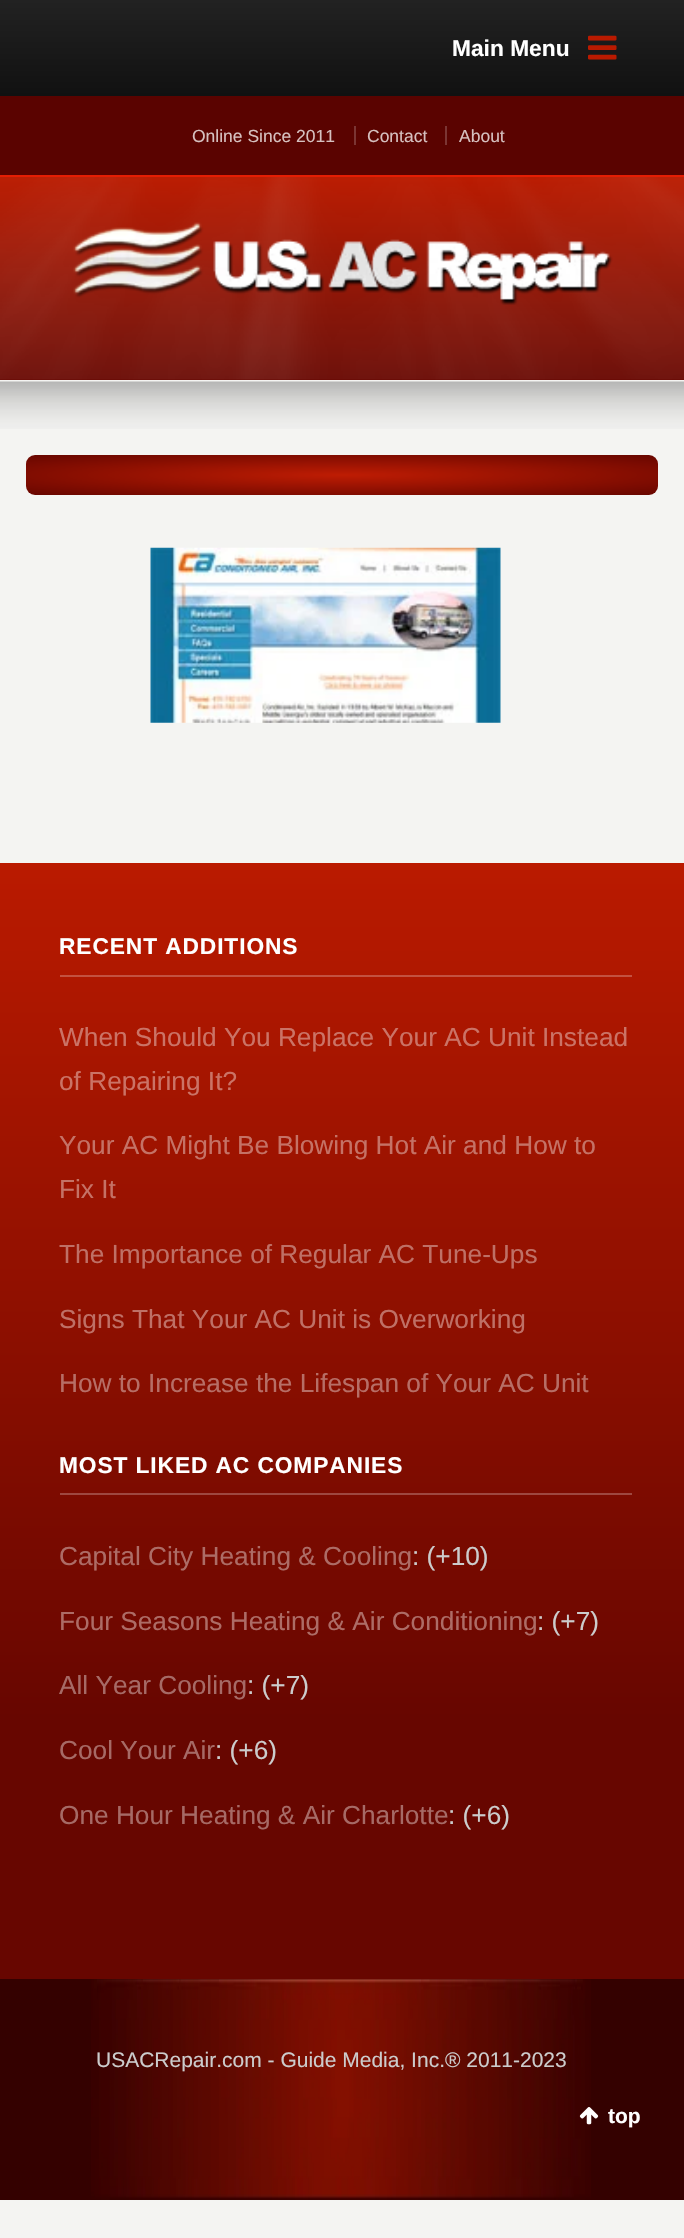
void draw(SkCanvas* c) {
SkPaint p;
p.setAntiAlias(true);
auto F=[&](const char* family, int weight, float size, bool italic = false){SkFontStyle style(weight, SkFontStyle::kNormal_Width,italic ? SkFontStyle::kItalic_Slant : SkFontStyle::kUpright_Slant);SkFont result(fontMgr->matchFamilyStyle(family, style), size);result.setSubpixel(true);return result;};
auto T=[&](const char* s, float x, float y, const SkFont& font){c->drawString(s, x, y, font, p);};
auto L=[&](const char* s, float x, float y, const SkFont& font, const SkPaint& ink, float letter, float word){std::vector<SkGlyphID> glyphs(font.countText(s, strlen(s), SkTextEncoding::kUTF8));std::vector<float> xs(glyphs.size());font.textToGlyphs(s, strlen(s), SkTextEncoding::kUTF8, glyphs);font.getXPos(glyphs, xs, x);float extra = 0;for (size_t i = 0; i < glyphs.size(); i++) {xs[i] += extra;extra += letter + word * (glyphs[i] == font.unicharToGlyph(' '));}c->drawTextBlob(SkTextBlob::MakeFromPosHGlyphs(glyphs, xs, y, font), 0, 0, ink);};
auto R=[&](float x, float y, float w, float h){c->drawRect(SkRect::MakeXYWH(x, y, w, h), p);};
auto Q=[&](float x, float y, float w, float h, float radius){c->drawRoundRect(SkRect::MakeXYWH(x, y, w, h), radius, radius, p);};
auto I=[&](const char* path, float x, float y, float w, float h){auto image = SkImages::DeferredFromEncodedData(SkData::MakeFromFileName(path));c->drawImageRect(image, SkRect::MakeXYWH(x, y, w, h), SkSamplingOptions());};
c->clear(0xfff4f4f2);
{
const SkColor colors[] = {0xff222222,0xff111111};
const float stops[] = {0,1};
const SkPoint ends[] = {{342,0}, {342,96}};
p.setShader(SkGradientShader::MakeLinear(ends, colors, stops, 2, SkTileMode::kClamp));
p.setAlpha(255);
}
R(0,0,684,96);
auto f1 = F("Liberation Sans",700,22.75);
p.setShader(nullptr);
p.setColor(0xffffffff);
T("Main Menu",452,56,f1);
I("1.png",588,35,29,25);
p.setColor(0xff5a0300);
R(0,96,684,79);
auto f2 = F("Liberation Sans",400,17.5);
p.setColor(0xffd6c0bf);
T("Online Since 2011",192,142,f2);
p.setColor(0xff7b3533);
R(354,126,2,19);
p.setColor(0xffd6c0bf);
T("Contact",367,142,f2);
p.setColor(0xff7b3533);
R(445,126,2,19);
p.setColor(0xffd6c0bf);
T("About",459,142,f2);
{
const SkColor colors[] = {0xffba1a00,0xff670600};
const float stops[] = {0,1};
const SkPoint ends[] = {{342,177}, {342,380}};
p.setShader(SkGradientShader::MakeLinear(ends, colors, stops, 2, SkTileMode::kClamp));
p.setAlpha(255);
}
R(0,177,684,203);
p.setShader(nullptr);
p.setColor(0xffe41e04);
R(0,175,684,2);
I("2.png",0,177,684,203);
I("3.png",73,222,540,83);
I("4.png",0,381,684,48);
{
const SkColor colors[] = {0xffbe1c03,0xff670600};
const float stops[] = {0,1};
SkMatrix m = SkMatrix::Translate(342,475).preScale(447,28);
p.setShader(SkGradientShader::MakeRadial({0, 0}, 1, colors, stops, 2, SkTileMode::kClamp, 0, &m));
p.setAlpha(255);
}
Q(26,455,632,40,9);
I("5.png",150,547,351,176);
{
const SkColor colors[] = {0xffba1a00,0xff670600};
const float stops[] = {0,.64};
const SkPoint ends[] = {{342,863}, {342,2200}};
p.setShader(SkGradientShader::MakeLinear(ends, colors, stops, 2, SkTileMode::kClamp));
p.setAlpha(255);
}
R(0,863,684,1116);
p.setShader(nullptr);
p.setColor(0xffc35140);
R(60,975,572,2);
p.setColor(0xffffffff);
L("RECENT ADDITIONS",59,954,f1,p,.9,0);
auto f3 = F("Liberation Sans",400,26.25);
p.setColor(0xffcb7366);
T("When Should You Replace Your AC Unit Instead",59,1046,f3);
T("of Repairing It?",59,1090,f3);
p.setColor(0xffc57266);
T("Your AC Might Be Blowing Hot Air and How to",59,1154,f3);
T("Fix It",59,1198,f3);
p.setColor(0xffbf7066);
T("The Importance of Regular AC Tune-Ups",59,1263,f3);
T("Signs That Your AC Unit is Overworking",59,1328,f3);
p.setColor(0xffb76e66);
T("How to Increase the Lifespan of Your AC Unit",59,1392,f3);
p.setColor(0xff9e4840);
R(60,1493,572,2);
p.setColor(0xffffffff);
L("MOST LIKED AC COMPANIES",59,1473,f1,p,.9,0);
p.setColor(0xffad6c66);
T("Capital City Heating & Cooling",59,1565,f3);
p.setColor(0xffcccccc);
T(": (+10)",412,1565,f3);
p.setColor(0xffad6c66);
T("Four Seasons Heating & Air Conditioning",59,1630,f3);
p.setColor(0xffcccccc);
T(": (+7)",537,1630,f3);
p.setColor(0xffa66a66);
T("All Year Cooling",59,1694,f3);
p.setColor(0xffcccccc);
T(": (+7)",247,1694,f3);
p.setColor(0xffa66a66);
T("Cool Your Air",59,1759,f3);
p.setColor(0xffcccccc);
T(": (+6)",215,1759,f3);
p.setColor(0xffa66a66);
T("One Hour Heating & Air Charlotte",59,1824,f3);
p.setColor(0xffcccccc);
T(": (+6)",448,1824,f3);
p.setColor(0xff340100);
R(0,1979,684,221);
I("6.png",91,1979,500,221);
auto f4 = F("Liberation Sans",400,21);
p.setColor(0xffcccccc);
T("USACRepair.com - Guide Media, Inc.® 2011-2023",96,2067,f4);
I("7.png",579,2107,20,18);
auto f5 = F("Liberation Sans",700,21);
p.setColor(0xffffffff);
T("top",608,2123,f5);
}
